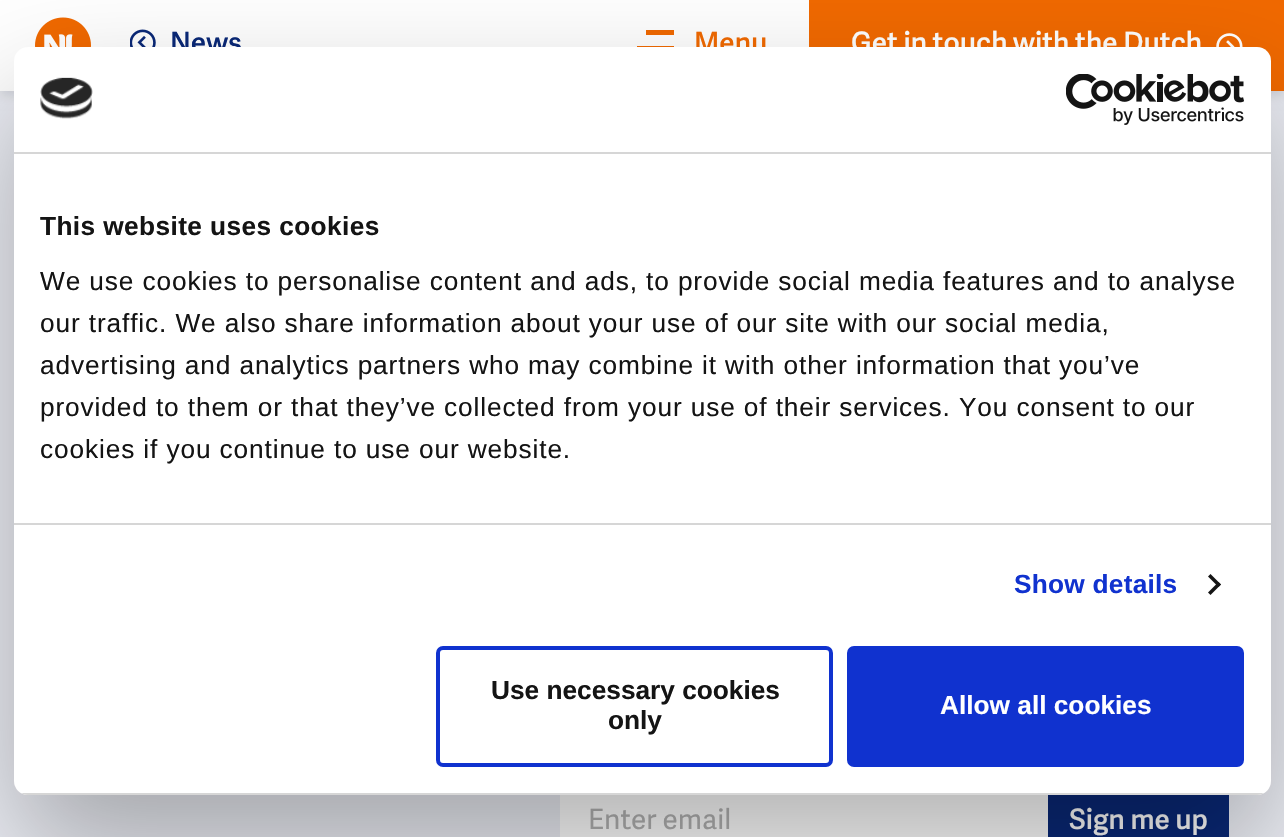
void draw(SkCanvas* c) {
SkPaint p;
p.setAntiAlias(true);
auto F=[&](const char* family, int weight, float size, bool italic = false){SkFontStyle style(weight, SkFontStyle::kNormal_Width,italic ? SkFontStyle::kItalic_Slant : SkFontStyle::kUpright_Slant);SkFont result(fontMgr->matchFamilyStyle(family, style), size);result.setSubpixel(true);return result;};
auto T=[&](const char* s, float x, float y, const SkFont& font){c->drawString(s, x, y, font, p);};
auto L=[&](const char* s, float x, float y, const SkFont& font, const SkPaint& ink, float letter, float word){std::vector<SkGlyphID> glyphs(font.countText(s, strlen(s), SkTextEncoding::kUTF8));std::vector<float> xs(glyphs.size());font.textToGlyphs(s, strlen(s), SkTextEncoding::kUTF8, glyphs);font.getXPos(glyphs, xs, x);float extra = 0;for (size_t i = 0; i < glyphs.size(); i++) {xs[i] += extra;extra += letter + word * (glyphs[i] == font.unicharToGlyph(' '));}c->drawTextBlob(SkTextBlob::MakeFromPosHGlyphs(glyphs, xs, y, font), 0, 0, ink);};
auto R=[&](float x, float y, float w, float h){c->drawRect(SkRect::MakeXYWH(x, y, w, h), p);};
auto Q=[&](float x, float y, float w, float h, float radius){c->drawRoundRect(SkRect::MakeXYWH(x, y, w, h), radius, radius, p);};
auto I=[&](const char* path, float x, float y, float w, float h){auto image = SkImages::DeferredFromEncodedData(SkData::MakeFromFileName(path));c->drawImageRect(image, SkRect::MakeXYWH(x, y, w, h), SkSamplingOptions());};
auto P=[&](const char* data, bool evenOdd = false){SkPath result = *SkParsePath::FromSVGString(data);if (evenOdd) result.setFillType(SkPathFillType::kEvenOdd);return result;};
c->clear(0xffeceef5);
p.setColor(0x1a000000);
p.setMaskFilter(SkMaskFilter::MakeBlur(kNormal_SkBlurStyle, 5));
c->drawRect(SkRect::MakeXYWH(0,5,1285,91),p);
p.setMaskFilter(nullptr);
p.setColor(0xffffffff);
R(0,0,809,91);
I("1.png",35,17,56,30);
I("2.png",130,29,26,18);
auto f1 = F("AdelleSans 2",400,28);
p.setColor(0xff092877);
T("News",170,52,f1);
p.setColor(0xfff16900);
R(646,30,28,5);
R(637,46,37,1);
T("Menu",694,52,f1);
R(809,0,475,91);
p.setColor(0xffffffff);
T("Get in touch with the Dutch",851,52,f1);
I("3.png",1216,33,27,14);
R(560,795,488,42);
auto f2 = F("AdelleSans",400,28);
p.setColor(0xffb3b3b3);
T("Enter email",588,829,f2);
p.setColor(0xff092877);
R(1048,795,181,42);
p.setColor(0xffffffff);
T("Sign me up",1069,829,f1);
p.setColor(0x4d000000);
p.setMaskFilter(SkMaskFilter::MakeBlur(kNormal_SkBlurStyle, 59.5));
c->drawRoundRect(SkRect::MakeXYWH(14,103,1257,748),14,14,p);
p.setMaskFilter(nullptr);
p.setColor(0xffffffff);
Q(14,47,1257,748,14);
p.setColor(0xffd6d6d6);
R(14,152,1257,2);
I("4.png",40,77,53,42);
I("5.png",1066,74,178,51);
R(14,523,1257,2);
auto f3 = F("Liberation Sans",700,26.25);
p.setColor(0xff141414);
L("This website uses cookies",40,235,f3,p,.4,0);
auto f4 = F("Liberation Sans",400,26.25);
L("We use cookies to personalise content and ads, to provide social media features and to analyse",40,290,f4,p,.88,0);
L("our traffic. We also share information about your use of our site with our social media,",40,332,f4,p,.88,0);
L("advertising and analytics partners who may combine it with other information that you’ve",40,374,f4,p,.88,0);
L("provided to them or that they’ve collected from your use of their services. You consent to our",40,416,f4,p,.88,0);
L("cookies if you continue to use our website.",40,458,f4,p,.88,0);
p.setColor(0xff1032cf);
L("Show details",1014,593,f3,p,.25,0);
p.setColor(0xff141414);
c->drawPath(P("M1210.5 574l10.5 10.5l-2.5 2.5l-10.5-10.5z"),p);
c->drawPath(P("M1218.5 582l2.5 2.5l-10.5 10.5l-2.5-2.5z"),p);
c->save();
c->clipPath(P("M28 47h1229c7.5 0 14 6.5 14 14v720c0 7.5-6.5 14-14 14h-1229c-7.5 0-14-6.5-14-14v-720c0-7.5 6.5-14 14-14z"),true);
p.setColor(0xffd6d6d6);
R(14,793,1257,2);
c->restore();
p.setStroke(true);
p.setStrokeWidth(4);
p.setColor(0xff1032cf);
c->drawRoundRect(SkRect::MakeXYWH(438,648,393,117),5,5,p);
p.setStroke(false);
p.setColor(0xff141414);
T("Use necessary cookies",491,699,f3);
T("only",608,729,f3);
p.setColor(0xff1032cf);
c->drawRoundRect(SkRect::MakeXYWH(849,648,393,117),5,5,p);
p.setStroke(true);
c->drawRoundRect(SkRect::MakeXYWH(849,648,393,117),5,5,p);
p.setStroke(false);
p.setColor(0xffffffff);
T("Allow all cookies",940,714,f3);
}
